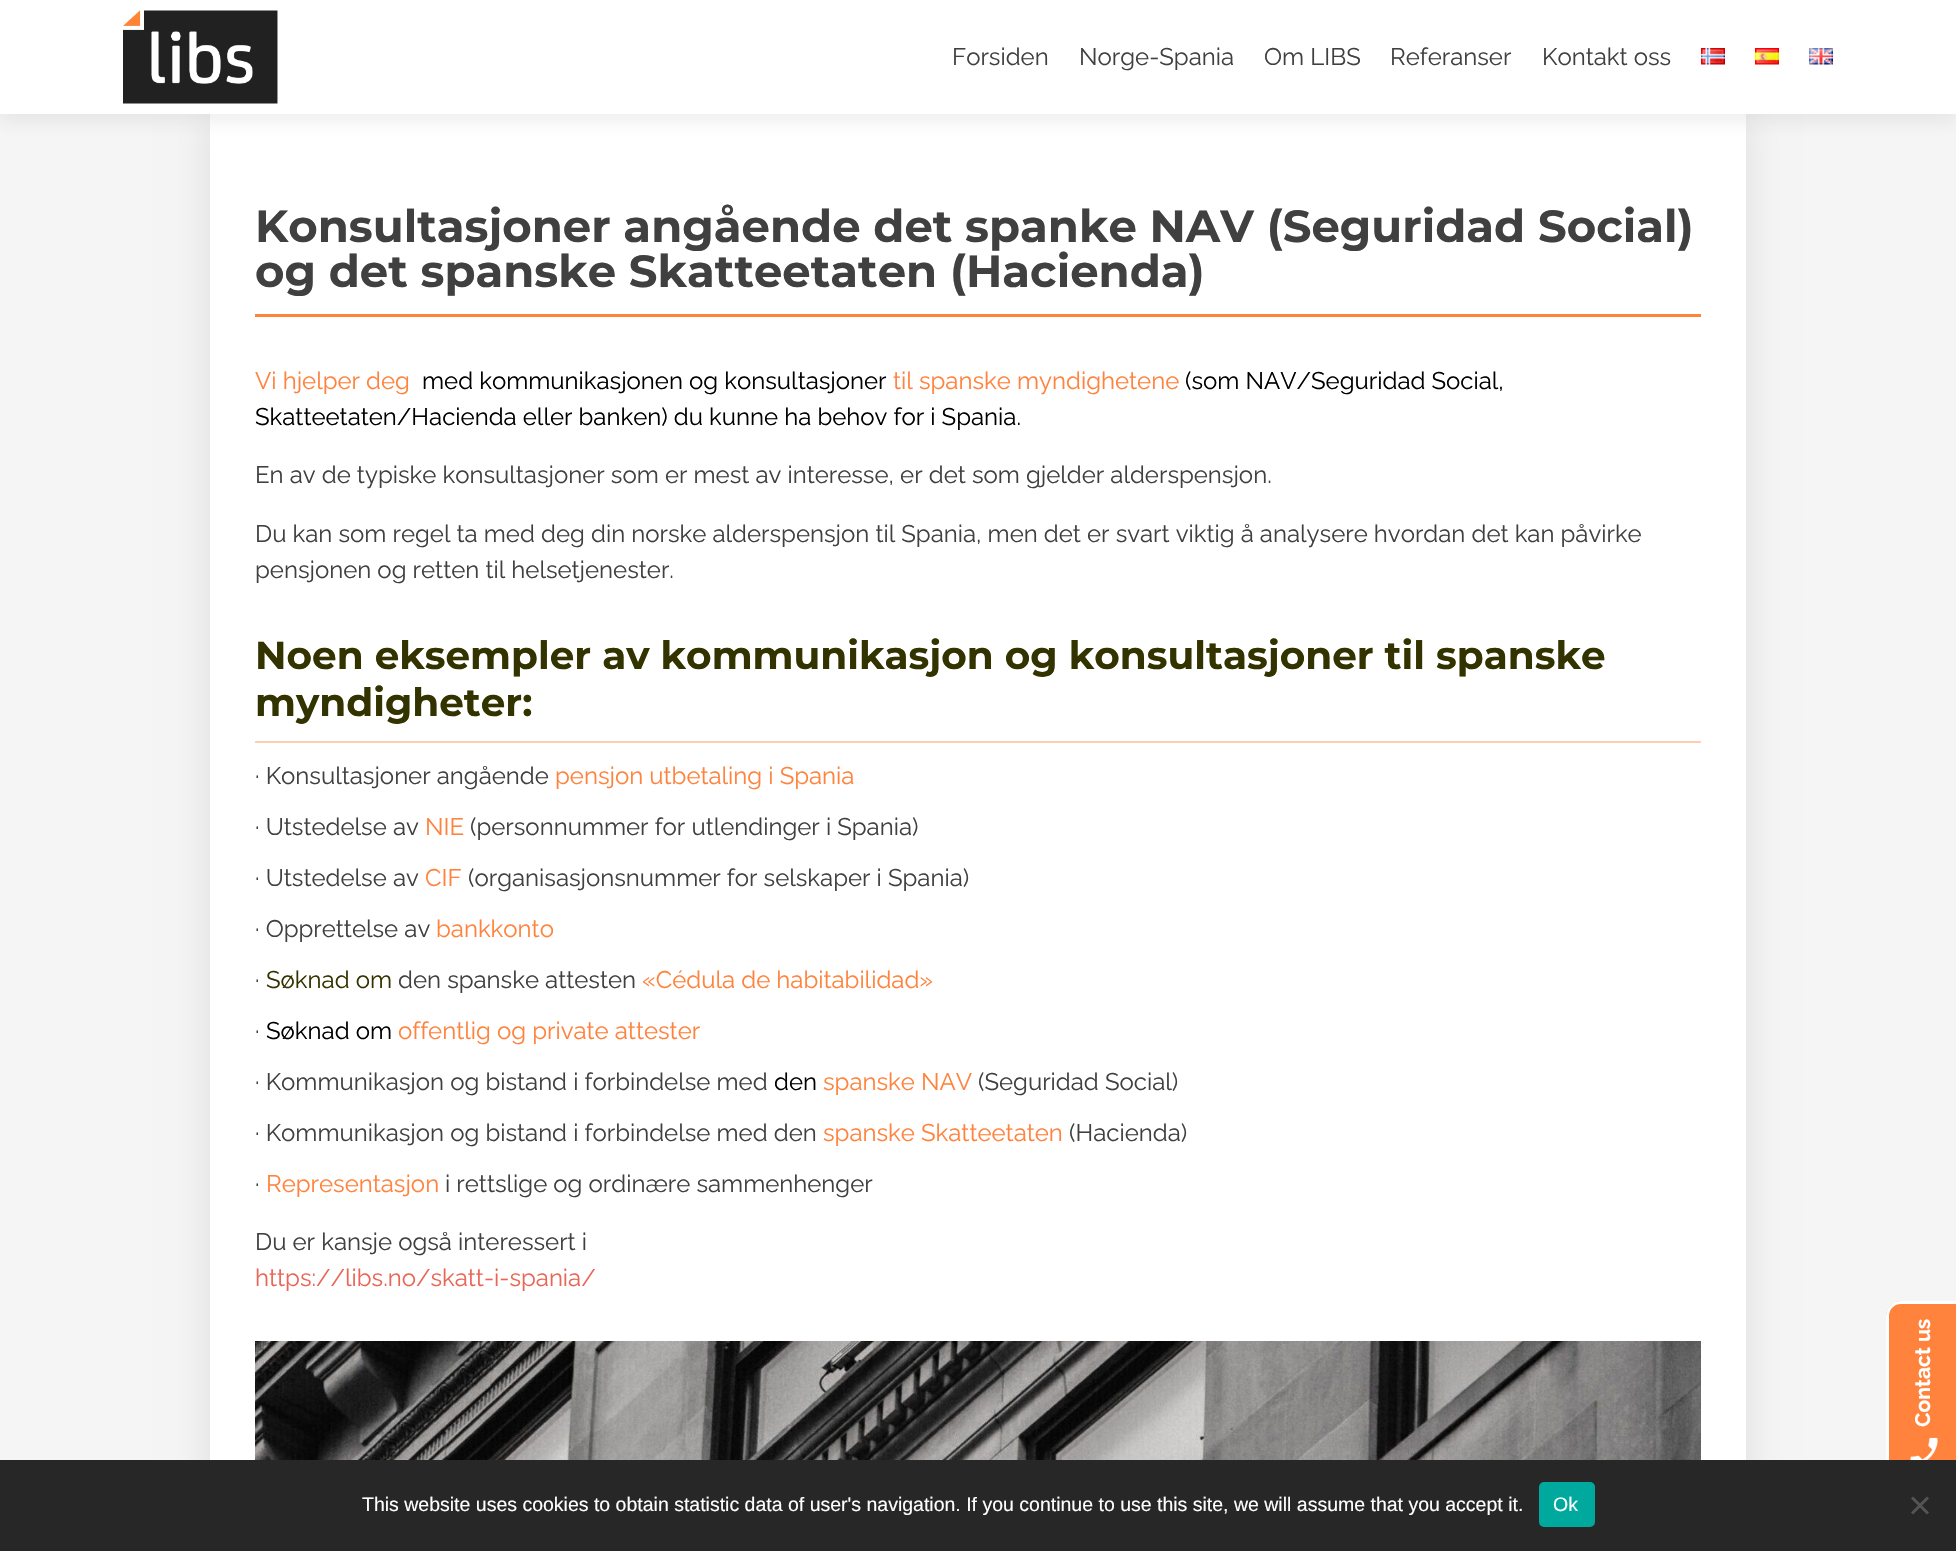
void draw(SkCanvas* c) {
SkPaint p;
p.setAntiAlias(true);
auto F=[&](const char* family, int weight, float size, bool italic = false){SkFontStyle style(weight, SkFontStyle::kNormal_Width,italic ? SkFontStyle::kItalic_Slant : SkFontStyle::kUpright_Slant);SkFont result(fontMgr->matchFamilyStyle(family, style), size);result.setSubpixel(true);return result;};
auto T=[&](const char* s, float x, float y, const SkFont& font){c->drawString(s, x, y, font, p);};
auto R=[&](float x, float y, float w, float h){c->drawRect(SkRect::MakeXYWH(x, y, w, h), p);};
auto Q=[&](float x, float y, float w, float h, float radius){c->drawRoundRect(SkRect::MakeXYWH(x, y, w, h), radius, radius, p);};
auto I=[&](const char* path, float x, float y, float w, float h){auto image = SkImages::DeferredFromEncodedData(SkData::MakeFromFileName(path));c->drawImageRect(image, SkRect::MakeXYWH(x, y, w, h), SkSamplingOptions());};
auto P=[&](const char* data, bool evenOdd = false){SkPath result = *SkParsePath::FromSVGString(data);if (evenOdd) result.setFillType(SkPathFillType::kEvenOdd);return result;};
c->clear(0xfff5f5f5);
p.setColor(0xffdddddd);
p.setMaskFilter(SkMaskFilter::MakeBlur(kNormal_SkBlurStyle, 19));
c->drawRect(SkRect::MakeXYWH(210,114,1536,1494),p);
p.setMaskFilter(nullptr);
p.setColor(0xffffffff);
R(210,114,1536,1346);
p.setColor(0x14323232);
p.setMaskFilter(SkMaskFilter::MakeBlur(kNormal_SkBlurStyle, 8));
c->drawRect(SkRect::MakeXYWH(0,8,1956,114),p);
p.setMaskFilter(nullptr);
p.setColor(0xffffffff);
R(0,0,1956,114);
I("1.png",123,10,155,94);
auto f1 = F("Raleway",400,24);
p.setColor(0xff404040);
T("Forsiden",952,65,f1);
T("Norge-Spania",1079,65,f1);
T("Om LIBS",1264,65,f1);
T("Referanser",1390,65,f1);
T("Kontakt oss",1542,65,f1);
I("2.png",1701,48,24,17);
I("3.png",1755,48,24,17);
I("4.png",1809,48,24,17);
auto f2 = F("Montserrat",700,45);
T("Konsultasjoner angående det spanke NAV (Seguridad Social)",255,242,f2);
T("og det spanske Skatteetaten (Hacienda)",255,287,f2);
p.setColor(0xffff833d);
R(255,314,1446,3);
T("Vi hjelper deg",255,389,f1);
p.setColor(0xff000000);
T("med kommunikasjonen og konsultasjoner",422,389,f1);
p.setColor(0xffff833d);
T("til spanske myndighetene",893,389,f1);
p.setColor(0xff000000);
T("(som NAV/Seguridad Social,",1185,389,f1);
T("Skatteetaten/Hacienda eller banken) du kunne ha behov for i Spania.",255,425,f1);
p.setColor(0xff404040);
T("En av de typiske konsultasjoner som er mest av interesse, er det som gjelder alderspensjon.",255,483,f1);
T("Du kan som regel ta med deg din norske alderspensjon til Spania, men det er svart viktig å analysere hvordan det kan påvirke",255,542,f1);
T("pensjonen og retten til helsetjenester.",255,578,f1);
auto f3 = F("Montserrat",700,39);
p.setColor(0xff333300);
T("Noen eksempler av kommunikasjon og konsultasjoner til spanske",255,669,f3);
T("myndigheter:",255,716,f3);
p.setColor(0xffffcdb1);
R(255,741,1446,2);
p.setColor(0xff404040);
T("· Konsultasjoner angående",255,784,f1);
p.setColor(0xffff833d);
T("pensjon utbetaling i Spania",555,784,f1);
p.setColor(0xff404040);
T("· Utstedelse av",255,835,f1);
p.setColor(0xffff833d);
T("NIE",425,835,f1);
p.setColor(0xff404040);
T("(personnummer for utlendinger i Spania)",470,835,f1);
T("· Utstedelse av",255,886,f1);
p.setColor(0xffff833d);
T("CIF",425,886,f1);
p.setColor(0xff404040);
T("(organisasjonsnummer for selskaper i Spania)",468,886,f1);
T("· Opprettelse av",255,937,f1);
p.setColor(0xffff833d);
T("bankkonto",436,937,f1);
p.setColor(0xff404040);
T("·",255,988,f1);
p.setColor(0xff333300);
T("Søknad om",266,988,f1);
p.setColor(0xff404040);
T("den spanske attesten",398,988,f1);
p.setColor(0xffff833d);
T("«Cédula de habitabilidad»",642,988,f1);
p.setColor(0xff404040);
T("·",255,1039,f1);
p.setColor(0xff000000);
T("Søknad om",266,1039,f1);
p.setColor(0xffff833d);
T("offentlig og private attester",398,1039,f1);
p.setColor(0xff404040);
T("· Kommunikasjon og bistand i forbindelse med",255,1090,f1);
p.setColor(0xff000000);
T("den",774,1090,f1);
p.setColor(0xffff833d);
T("spanske NAV",823,1090,f1);
p.setColor(0xff404040);
T("(Seguridad Social)",978,1090,f1);
T("· Kommunikasjon og bistand i forbindelse med den",255,1141,f1);
p.setColor(0xffff833d);
T("spanske Skatteetaten",823,1141,f1);
p.setColor(0xff404040);
T("(Hacienda)",1069,1141,f1);
T("·",255,1192,f1);
p.setColor(0xffff833d);
T("Representasjon",266,1192,f1);
p.setColor(0xff404040);
T("i rettslige og ordinære sammenhenger",445,1192,f1);
T("Du er kansje også interessert i",255,1250,f1);
p.setColor(0xffe96656);
T("https://libs.no/skatt-i-spania/",255,1286,f1);
I("5.png",255,1341,1446,119);
p.setColor(0xffff833d);
c->drawPath(P("M1886 1473v-157c0-8 7-15 15-15h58v187h-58c-8 0-15-7-15-15z"),p);
p.setStroke(true);
p.setStrokeWidth(3);
p.setColor(0xffffffff);
c->drawPath(P("M1887.5 1472.5v-156.5c0-7.5 6-13.5 13.5-13.5h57v183.5h-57c-7.5 0-13.5-6-13.5-13.5z"),p);
auto f4 = F("Raleway",700,21);
p.setStroke(false);
c->save();
c->rotate(-90,1930,1427);
T("Contact us",1930,1427,f4);
c->restore();
I("6.png",1910,1437,28,23);
p.setColor(0xff272727);
R(0,1460,1956,91);
auto f5 = F("Liberation Sans",400,19.5);
p.setColor(0xffffffff);
T("This website uses cookies to obtain statistic data of user's navigation. If you continue to use this site, we will assume that you accept it.",362,1511,f5);
p.setColor(0xff00a99d);
Q(1539,1482,56,45,5);
p.setColor(0xffffffff);
T("Ok",1553,1511,f5);
p.setColor(0xff545454);
c->drawPath(P("M1927 1496.5l2 2l-16 16l-2-2z"),p);
c->drawPath(P("M1911 1498.5l2-2l16 16l-2 2z"),p);
}
